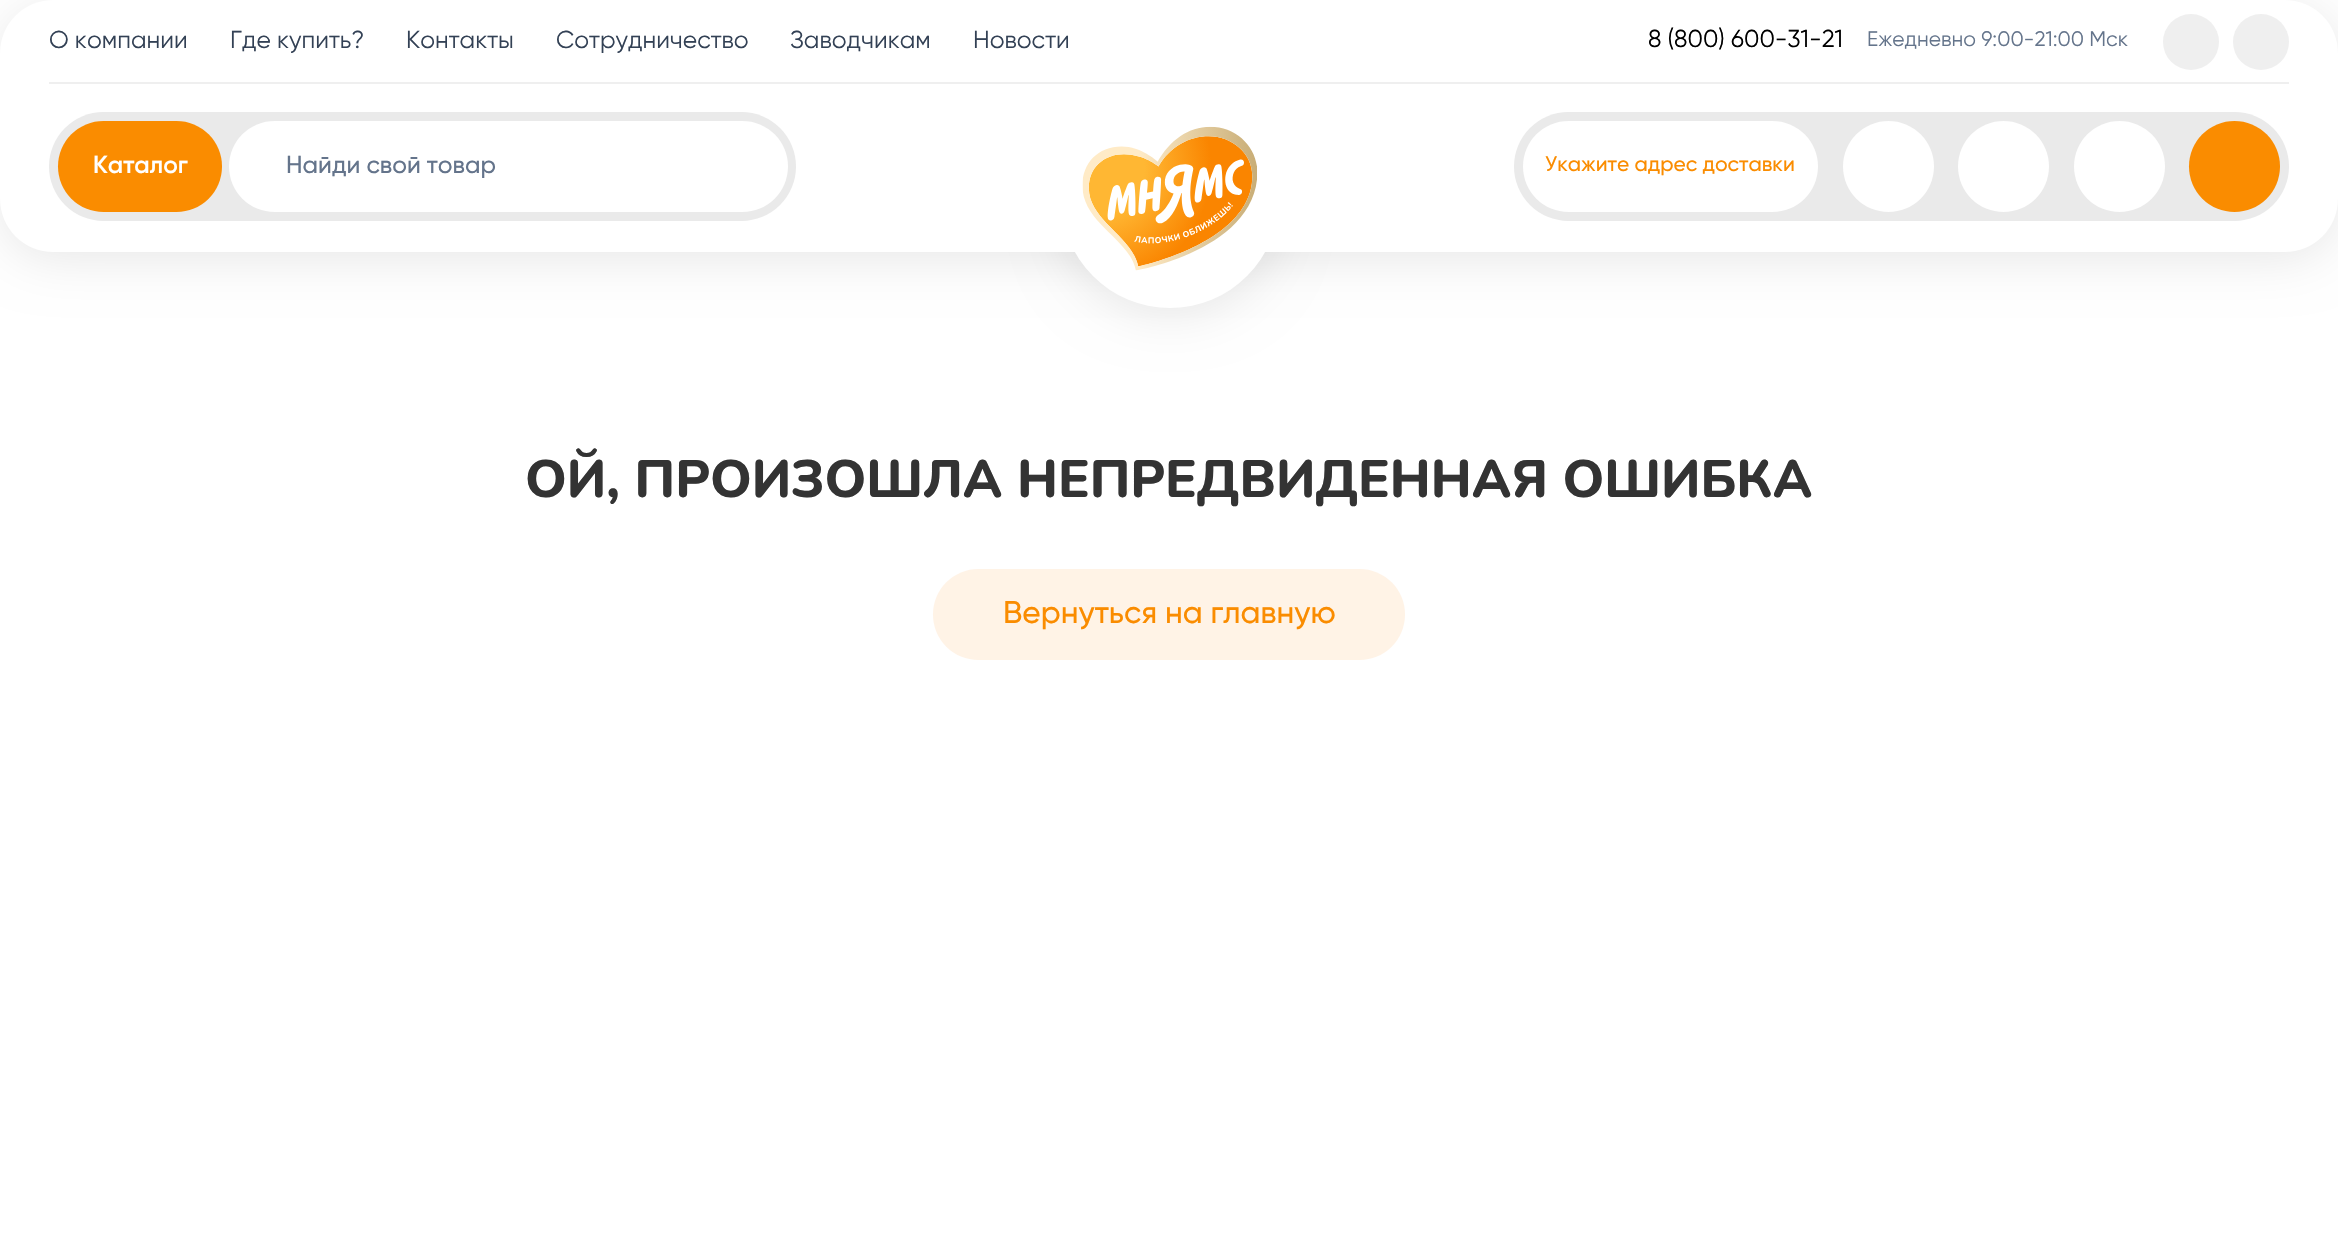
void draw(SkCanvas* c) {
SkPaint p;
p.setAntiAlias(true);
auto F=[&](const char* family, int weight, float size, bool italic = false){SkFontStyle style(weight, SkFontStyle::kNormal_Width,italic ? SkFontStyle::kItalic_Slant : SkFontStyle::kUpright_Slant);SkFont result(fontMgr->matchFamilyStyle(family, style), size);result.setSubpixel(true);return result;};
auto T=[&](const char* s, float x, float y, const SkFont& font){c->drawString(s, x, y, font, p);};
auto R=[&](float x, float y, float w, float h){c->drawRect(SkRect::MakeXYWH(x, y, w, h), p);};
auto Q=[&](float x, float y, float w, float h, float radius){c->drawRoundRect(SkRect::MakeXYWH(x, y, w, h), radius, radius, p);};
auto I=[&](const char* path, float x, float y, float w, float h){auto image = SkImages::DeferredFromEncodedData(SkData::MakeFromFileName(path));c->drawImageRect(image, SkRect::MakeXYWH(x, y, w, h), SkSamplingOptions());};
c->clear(0xffffffff);
p.setColor(0x1a000000);
p.setMaskFilter(SkMaskFilter::MakeBlur(kNormal_SkBlurStyle, 26));
c->drawRoundRect(SkRect::MakeXYWH(1064,100,212,212),106,106,p);
p.setMaskFilter(nullptr);
p.setMaskFilter(SkMaskFilter::MakeBlur(kNormal_SkBlurStyle, 26));
c->drawRoundRect(SkRect::MakeXYWH(4,11,2331,245),49,49,p);
p.setMaskFilter(nullptr);
p.setColor(0xffffffff);
Q(0,0,2338,252,53);
p.setColor(0xffefefef);
R(49,82,2240,2);
auto f1 = F("Gilroy",400,24.5);
p.setColor(0xff334155);
T("О компании",49,48,f1);
T("Где купить?",230,48,f1);
T("Контакты",406,48,f1);
T("Сотрудничество",556,48,f1);
T("Заводчикам",790,48,f1);
T("Новости",973,48,f1);
p.setColor(0xff000000);
T("8 (800) 600-31-21",1648,47,f1);
auto f2 = F("Gilroy",400,21);
p.setColor(0xff64748b);
T("Ежедневно 9:00-21:00 Мск",1867,46,f2);
p.setColor(0xffefefef);
c->drawCircle(2191,42,28,p);
c->drawCircle(2261,42,28,p);
p.setColor(0xffeaeaea);
Q(49,112,747,109,54.5);
p.setColor(0xfffa8c00);
Q(58,121,164,91,45.5);
auto f3 = F("Gilroy",600,24.5);
p.setColor(0xffffffff);
T("Каталог",93,173,f3);
Q(229,121,559,91,45.5);
auto f4 = F("Gilroy",500,24.5);
p.setColor(0xff64748b);
T("Найди свой товар",286,173,f4);
p.setColor(0xffffffff);
Q(1061,89,218,219,109);
I("1.png",1082,126,175,145);
p.setColor(0xffeaeaea);
Q(1514,112,775,109,54.5);
p.setColor(0xffffffff);
Q(1523,121,295,91,45.5);
auto f5 = F("Gilroy",500,21);
p.setColor(0xfffa8c00);
T("Укажите адрес доставки",1545,171,f5);
p.setColor(0xffffffff);
c->drawCircle(1888.5,166.5,45.5,p);
c->drawCircle(2003.5,166.5,45.5,p);
c->drawCircle(2119.5,166.5,45.5,p);
p.setColor(0xfffa8c00);
c->drawCircle(2234.5,166.5,45.5,p);
auto f6 = F("Nunito",800,52.5);
p.setColor(0xff333333);
T("ОЙ, ПРОИЗОШЛА НЕПРЕДВИДЕННАЯ ОШИБКА",525,497,f6);
p.setColor(0xfffff3e6);
Q(933,569,472,91,45.5);
auto f7 = F("Gilroy",500,31.5);
p.setColor(0xfffa8c00);
T("Вернуться на главную",1003,623,f7);
}
